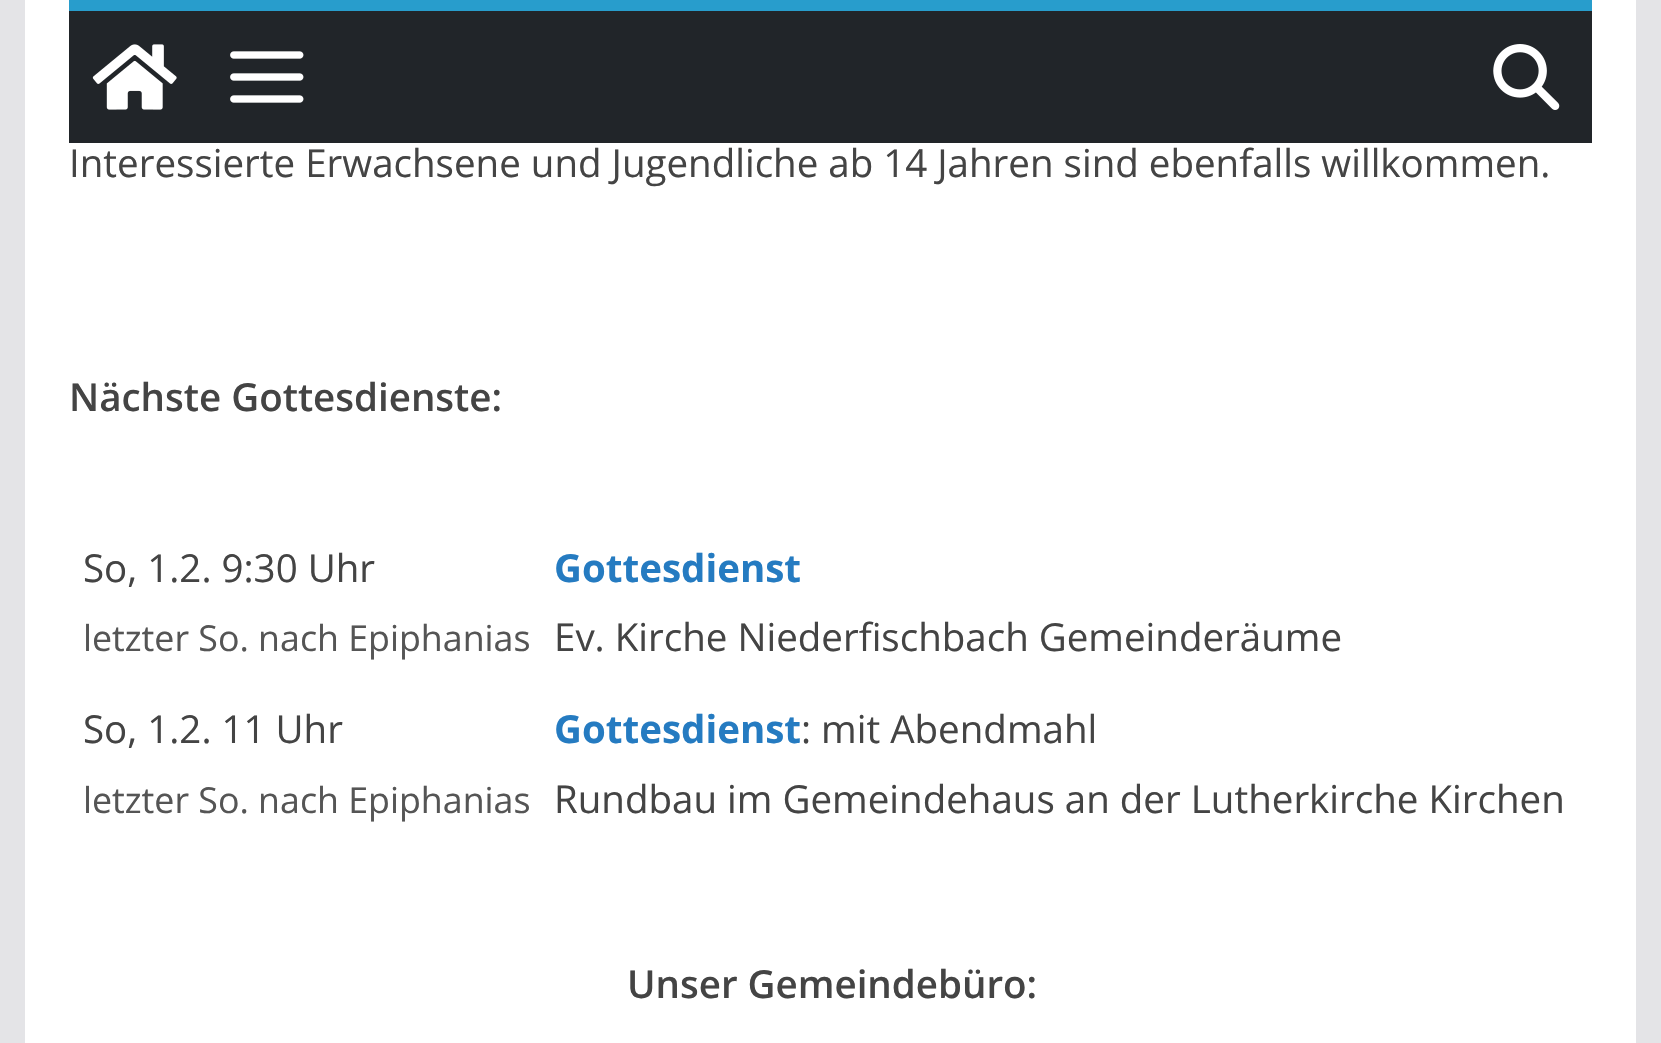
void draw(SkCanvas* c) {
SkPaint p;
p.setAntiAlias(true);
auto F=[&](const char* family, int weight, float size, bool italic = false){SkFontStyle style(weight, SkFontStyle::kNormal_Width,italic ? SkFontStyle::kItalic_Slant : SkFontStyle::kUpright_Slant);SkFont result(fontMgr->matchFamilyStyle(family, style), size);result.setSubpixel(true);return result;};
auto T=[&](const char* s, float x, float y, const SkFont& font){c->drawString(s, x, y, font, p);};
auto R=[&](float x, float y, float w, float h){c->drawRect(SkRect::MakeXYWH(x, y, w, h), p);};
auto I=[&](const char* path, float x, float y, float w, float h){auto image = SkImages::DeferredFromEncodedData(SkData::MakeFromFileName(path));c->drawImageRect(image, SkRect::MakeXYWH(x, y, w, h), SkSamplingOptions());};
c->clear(0xffe4e4e7);
p.setColor(0xffffffff);
R(25,0,1611,1043);
p.setColor(0xff212529);
R(69,11,1523,132);
p.setColor(0xff289dcc);
R(69,0,1523,11);
I("1.png",92,44,85,66);
I("2.png",230,51,74,52);
I("3.png",1493,44,67,66);
auto f1 = F("Open Sans",400,38.5);
p.setColor(0xff444444);
T("Interessierte Erwachsene und Jugendliche ab 14 Jahren sind ebenfalls willkommen.",69,177,f1);
auto f2 = F("Open Sans",600,38.5);
T("Nächste Gottesdienste:",69,411,f2);
T("So, 1.2. 9:30 Uhr",83,582,f1);
auto f3 = F("Open Sans",400,35.75);
p.setColor(0xff555555);
T("letzter So. nach Epiphanias",83,651,f3);
auto f4 = F("Open Sans",700,38.5);
p.setColor(0xff257bc1);
T("Gottesdienst",554,582,f4);
p.setColor(0xff444444);
T("Ev. Kirche Niederfischbach Gemeinderäume",554,651,f1);
T("So, 1.2. 11 Uhr",83,743,f1);
p.setColor(0xff555555);
T("letzter So. nach Epiphanias",83,813,f3);
p.setColor(0xff257bc1);
T("Gottesdienst",554,743,f4);
p.setColor(0xff444444);
T(": mit Abendmahl",801,743,f1);
T("Rundbau im Gemeindehaus an der Lutherkirche Kirchen",554,813,f1);
T("Unser Gemeindebüro:",627,998,f2);
}
